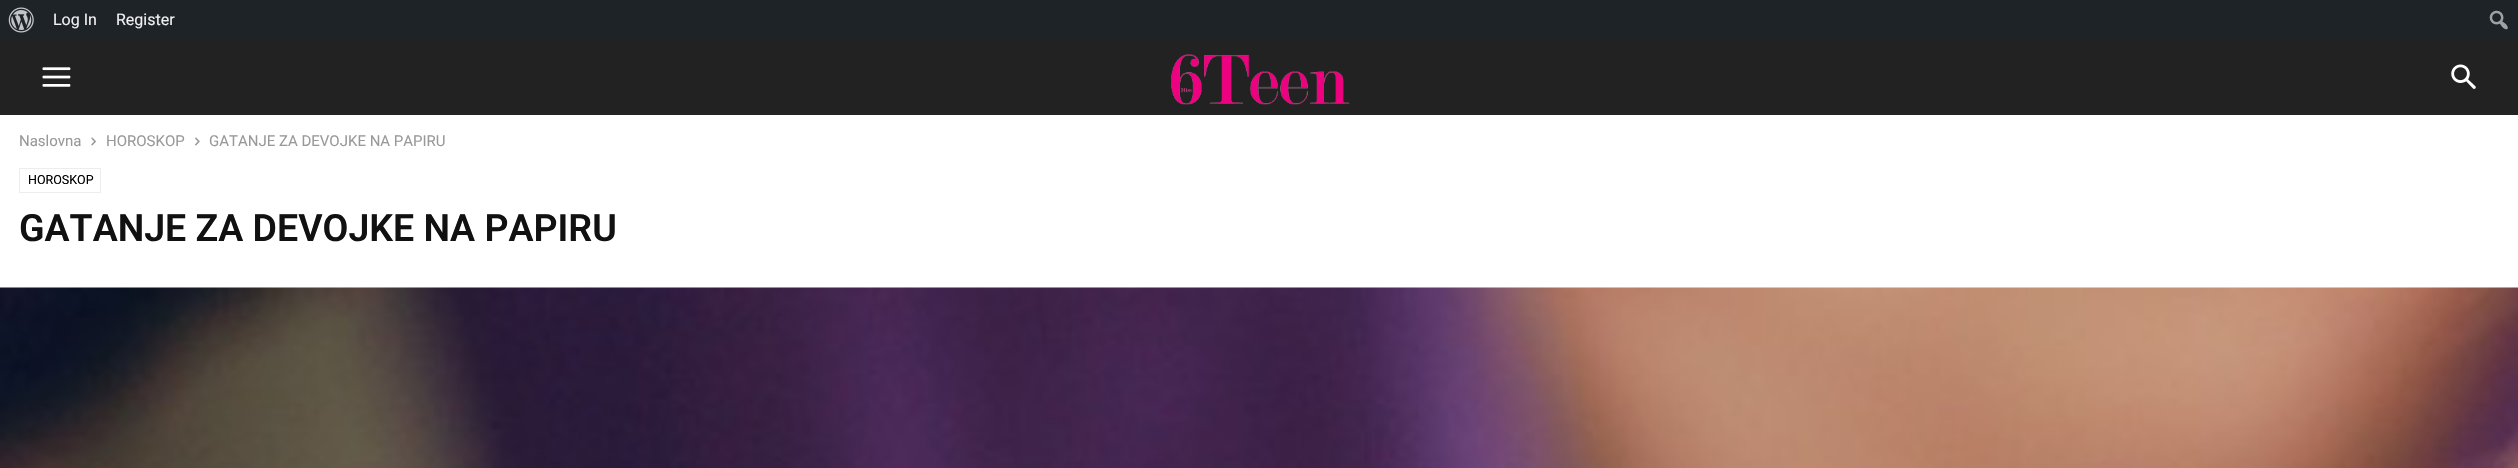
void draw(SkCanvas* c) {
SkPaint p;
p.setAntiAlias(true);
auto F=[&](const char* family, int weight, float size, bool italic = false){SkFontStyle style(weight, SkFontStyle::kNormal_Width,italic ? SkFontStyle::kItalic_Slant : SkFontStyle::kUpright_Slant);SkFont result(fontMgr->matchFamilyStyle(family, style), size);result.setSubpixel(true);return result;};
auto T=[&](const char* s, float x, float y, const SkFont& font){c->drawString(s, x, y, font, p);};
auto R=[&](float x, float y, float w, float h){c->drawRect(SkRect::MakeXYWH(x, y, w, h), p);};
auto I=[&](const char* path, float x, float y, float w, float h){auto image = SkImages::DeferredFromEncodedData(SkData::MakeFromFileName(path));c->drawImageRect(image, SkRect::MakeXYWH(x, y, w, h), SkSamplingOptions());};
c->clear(0xffffffff);
p.setColor(0xff1d2327);
R(0,0,2518,40);
I("1.png",8,7,26,26);
auto f1 = F("Roboto",400,16);
p.setColor(0xfff0f0f1);
T("Log In",53,25,f1);
T("Register",116,25,f1);
I("2.png",2489,10,19,20);
p.setColor(0xff222222);
R(0,40,2518,75);
I("3.png",42,67,29,20);
I("4.png",1171,54,179,51);
I("5.png",2451,64,25,25);
auto f2 = F("Roboto",400,15);
p.setColor(0xff999999);
T("Naslovna",19,146,f2);
I("6.png",91,137,5,9);
T("HOROSKOP",106,146,f2);
I("7.png",195,137,5,9);
T("GATANJE ZA DEVOJKE NA PAPIRU",209,146,f2);
p.setStroke(true);
p.setStrokeWidth(1);
p.setColor(0xffededed);
c->drawRect(SkRect::MakeXYWH(19.5,168.5,81,24),p);
auto f3 = F("Roboto",400,12.5);
p.setStroke(false);
p.setColor(0xff000000);
T("HOROSKOP",28,184,f3);
auto f4 = F("Roboto",600,37.5);
p.setColor(0xff111111);
T("GATANJE ZA DEVOJKE NA PAPIRU",19,241,f4);
I("8.png",0,287,2518,181);
}
